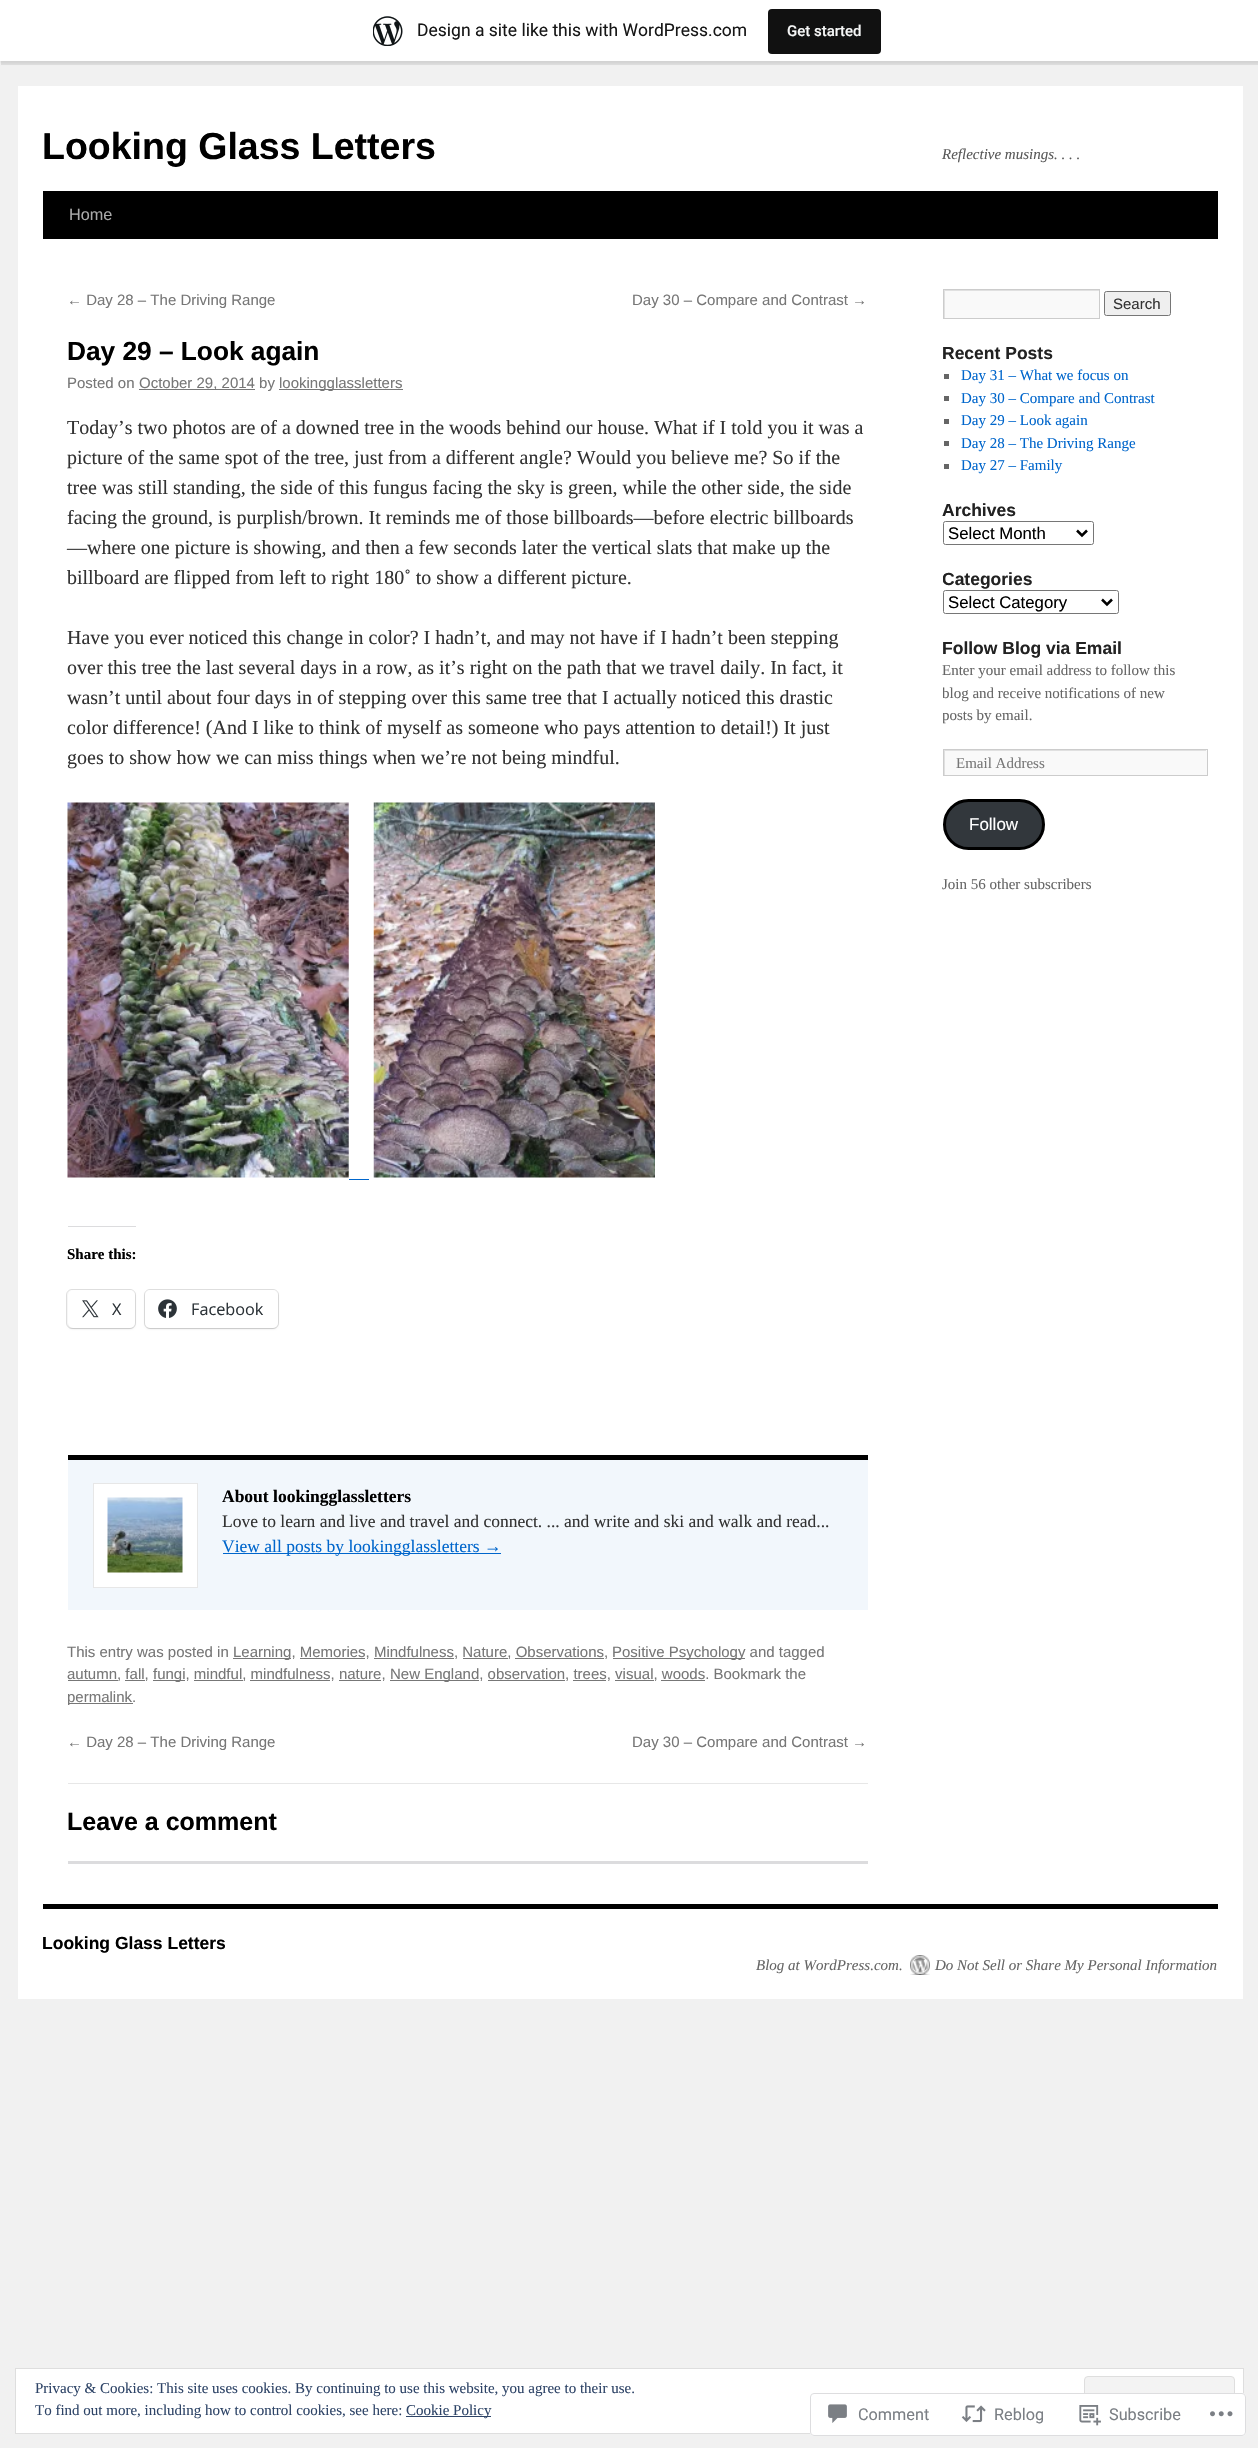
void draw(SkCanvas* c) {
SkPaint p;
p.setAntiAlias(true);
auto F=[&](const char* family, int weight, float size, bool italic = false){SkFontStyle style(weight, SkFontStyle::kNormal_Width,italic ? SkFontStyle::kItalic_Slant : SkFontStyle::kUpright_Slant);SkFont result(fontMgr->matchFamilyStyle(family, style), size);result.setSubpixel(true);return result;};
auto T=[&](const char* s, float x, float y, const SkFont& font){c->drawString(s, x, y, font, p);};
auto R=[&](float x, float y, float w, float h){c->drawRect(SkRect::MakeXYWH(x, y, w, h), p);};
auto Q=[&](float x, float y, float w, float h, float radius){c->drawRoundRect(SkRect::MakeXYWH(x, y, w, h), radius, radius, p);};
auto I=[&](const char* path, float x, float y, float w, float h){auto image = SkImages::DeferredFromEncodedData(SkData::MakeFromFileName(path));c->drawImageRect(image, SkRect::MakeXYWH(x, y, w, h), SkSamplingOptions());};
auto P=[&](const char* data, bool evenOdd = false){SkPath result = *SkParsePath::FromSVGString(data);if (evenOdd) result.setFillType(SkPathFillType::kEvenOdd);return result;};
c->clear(0xfff1f1f1);
p.setColor(0x0d000000);
p.setMaskFilter(SkMaskFilter::MakeBlur(kNormal_SkBlurStyle, 1));
c->drawRect(SkRect::MakeXYWH(0,1,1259,62),p);
p.setMaskFilter(nullptr);
p.setColor(0x14000000);
c->drawPath(P("M1 61v4h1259v-61h-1v57z"),p);
p.setColor(0xffffffff);
R(0,0,1258,61);
I("1.png",373,16,30,30);
auto f1 = F("Roboto",400,17.5);
p.setColor(0xff171717);
T("Design a site like this with WordPress.com",417,36,f1);
p.setColor(0xff111111);
Q(768,9,113,45,4);
auto f2 = F("Roboto",500,15);
p.setColor(0xfff6f7f7);
T("Get started",787,36,f2);
p.setColor(0xffffffff);
R(18,86,1225,1913);
auto f3 = F("Liberation Sans",700,37.5);
p.setColor(0xff000000);
T("Looking Glass Letters",42,159,f3);
auto f4 = F("Liberation Serif",400,15,true);
p.setColor(0xff595959);
T("Reflective musings. . . .",942,159,f4);
p.setColor(0xff000000);
R(43,191,1175,48);
auto f5 = F("Liberation Sans",400,16.25);
p.setColor(0xffaaaaaa);
T("Home",69,220,f5);
auto f6 = F("Liberation Sans",400,15);
p.setColor(0xff777777);
T("← Day 28 – The Driving Range",67,305,f6);
T("Day 30 – Compare and Contrast →",632,305,f6);
auto f7 = F("Liberation Sans",700,26.25);
p.setColor(0xff000000);
T("Day 29 – Look again",67,360,f7);
p.setColor(0xff777777);
T("Posted on",67,388,f6);
R(139,389,116,1);
T("October 29, 2014 by",139,388,f6);
R(279,389,124,1);
T("lookingglassletters",279,388,f6);
auto f8 = F("Liberation Serif",400,20);
p.setColor(0xff333333);
T("Today’s two photos are of a downed tree in the woods behind our house. What if I told you it was a",67,434,f8);
T("picture of the same spot of the tree, just from a different angle? Would you believe me? So if the",67,464,f8);
T("tree was still standing, the side of this fungus facing the sky is green, while the other side, the side",67,494,f8);
T("facing the ground, is purplish/brown. It reminds me of those billboards—before electric billboards",67,524,f8);
T("—where one picture is showing, and then a few seconds later the vertical slats that make up the",67,554,f8);
T("billboard are flipped from left to right 180˚ to show a different picture.",67,584,f8);
T("Have you ever noticed this change in color? I hadn’t, and may not have if I hadn’t been stepping",67,644,f8);
T("over this tree the last several days in a row, as it’s right on the path that we travel daily. In fact, it",67,674,f8);
T("wasn’t until about four days in of stepping over this same tree that I actually noticed this drastic",67,704,f8);
T("color difference! (And I like to think of myself as someone who pays attention to detail!) It just",67,734,f8);
T("goes to show how we can miss things when we’re not being mindful.",67,764,f8);
I("2.png",67,802,282,376);
I("3.png",373,802,282,376);
p.setColor(0xff0066cc);
R(349,1179,20,1);
p.setColor(0xffdcdcde);
R(68,1226,68,1);
auto f9 = F("Liberation Serif",700,15);
p.setColor(0xff000000);
T("Share this:",67,1259,f9);
p.setStroke(true);
p.setStrokeWidth(1);
p.setColor(0xffe0e0e0);
c->drawRoundRect(SkRect::MakeXYWH(66.5,1289.5,69,39),5.5,5.5,p);
p.setStroke(false);
p.setColor(0x1f000000);
p.setMaskFilter(SkMaskFilter::MakeBlur(kNormal_SkBlurStyle, 1));
c->drawRoundRect(SkRect::MakeXYWH(68,1291,67,38),5,5,p);
p.setMaskFilter(nullptr);
p.setColor(0xffffffff);
Q(68,1290,67,38,5);
I("4.png",82,1300,17,18);
auto f10 = F("Open Sans",400,16.25);
p.setColor(0xff2c3338);
T("X",112,1315,f10);
p.setStroke(true);
p.setColor(0xffe0e0e0);
c->drawRoundRect(SkRect::MakeXYWH(144.5,1289.5,134,39),5.5,5.5,p);
p.setStroke(false);
p.setColor(0x1f000000);
p.setMaskFilter(SkMaskFilter::MakeBlur(kNormal_SkBlurStyle, 1));
c->drawRoundRect(SkRect::MakeXYWH(145,1291,133,38),5,5,p);
p.setMaskFilter(nullptr);
p.setColor(0xffffffff);
Q(145,1290,133,38,5);
I("5.png",158,1299,19,19);
p.setColor(0xff2c3338);
T("Facebook",191,1315,f10);
p.setColor(0xfff2f7fc);
R(68,1460,800,150);
p.setColor(0xff000000);
R(68,1455,800,5);
p.setColor(0xffffffff);
c->drawRect(SkRect::MakeXYWH(93.5,1483.5,104,104),p);
p.setStroke(true);
p.setColor(0xffe7e7e7);
c->drawRect(SkRect::MakeXYWH(93.5,1483.5,104,104),p);
I("6.png",107,1497,76,76);
auto f11 = F("Liberation Serif",700,17.5);
p.setStroke(false);
p.setColor(0xff000000);
T("About lookingglassletters",222,1502,f11);
auto f12 = F("Liberation Serif",400,17.5);
p.setColor(0xff333333);
T("Love to learn and live and travel and connect. ... and write and ski and walk and read...",222,1527,f12);
p.setColor(0xff0066cc);
R(223,1553,278,1);
T("View all posts by lookingglassletters →",222,1552,f12);
p.setColor(0xff777777);
T("This entry was posted in",67,1657,f6);
R(233,1658,58,1);
T("Learning, Memories, Mindfulness, Nature, Observations,",233,1657,f6);
R(613,1658,132,1);
T("Positive Psychology and tagged",612,1657,f6);
R(300,1658,65,1);
R(374,1658,80,1);
R(463,1658,45,1);
R(515,1658,89,1);
R(68,1680,50,1);
T("autumn, fall,",67,1679,f6);
R(153,1680,32,1);
T("fungi, mindful, mindfulness, nature,",153,1679,f6);
R(390,1680,89,1);
T("New England, observation, trees, visual, woods. Bookmark the",390,1679,f6);
R(125,1680,20,1);
R(194,1680,49,1);
R(250,1680,80,1);
R(339,1680,42,1);
R(488,1680,77,1);
R(573,1680,33,1);
R(615,1680,39,1);
R(661,1680,44,1);
R(68,1703,65,1);
T("permalink.",67,1702,f6);
T("← Day 28 – The Driving Range",67,1747,f6);
T("Day 30 – Compare and Contrast →",632,1747,f6);
p.setColor(0xffe7e7e7);
R(68,1783,800,1);
auto f13 = F("Liberation Sans",700,25);
p.setColor(0xff000000);
T("Leave a comment",67,1830,f13);
p.setColor(0xffdcdcde);
R(68,1861,800,3);
p.setColor(0xfff9f9f9);
R(945,291,154,27);
c->save();
c->clipRect(SkRect::MakeXYWH(944,290,155,28));
p.setColor(0xffe0e0e0);
c->drawPath(P("M820 166h402v275h-402zm125 125h155v28h-155z",true),p);
c->restore();
p.setStroke(true);
p.setColor(0xffcccccc);
c->drawRect(SkRect::MakeXYWH(943.5,289.5,156,29),p);
p.setStroke(false);
p.setColor(0xffefefef);
c->drawRoundRect(SkRect::MakeXYWH(1104.5,291.5,66,24),2,2,p);
p.setStroke(true);
p.setColor(0xff767676);
c->drawRoundRect(SkRect::MakeXYWH(1104.5,291.5,66,24),2,2,p);
p.setStroke(false);
p.setColor(0xff333333);
T("Search",1113,309,f6);
auto f14 = F("Liberation Sans",700,17.5);
p.setColor(0xff222222);
T("Recent Posts",942,359,f14);
p.setColor(0xff666666);
R(944,374,5,5);
auto f15 = F("Liberation Serif",400,15);
p.setColor(0xff0066cc);
T("Day 31 – What we focus on",961,380,f15);
p.setColor(0xff666666);
R(944,396,5,5);
p.setColor(0xff0066cc);
T("Day 30 – Compare and Contrast",961,403,f15);
p.setColor(0xff666666);
R(944,419,5,5);
p.setColor(0xff0066cc);
T("Day 29 – Look again",961,425,f15);
p.setColor(0xff666666);
R(944,441,5,5);
p.setColor(0xff0066cc);
T("Day 28 – The Driving Range",961,448,f15);
p.setColor(0xff666666);
R(944,464,5,5);
p.setColor(0xff0066cc);
T("Day 27 – Family",961,470,f15);
p.setColor(0xff222222);
T("Archives",942,516,f14);
p.setStroke(true);
p.setColor(0xff767676);
c->drawRoundRect(SkRect::MakeXYWH(943.5,521.5,150,23),2,2,p);
p.setStrokeWidth(2.5);
p.setColor(0xff000000);
c->drawPath(P("M1077 530.5l5 5l5-5"),p);
auto f16 = F("Liberation Sans",400,16.75);
p.setStroke(false);
T("Select Month",948,539,f16);
c->save();
c->clipRect(SkRect::MakeXYWH(943,289,275,629));
p.setColor(0xff222222);
T("Categories",942,585,f14);
c->restore();
p.setStroke(true);
p.setStrokeWidth(1);
p.setColor(0xff767676);
c->drawRoundRect(SkRect::MakeXYWH(943.5,590.5,175,23),2,2,p);
p.setStrokeWidth(2.5);
p.setColor(0xff000000);
c->drawPath(P("M1102 599.5l5 5l5-5"),p);
p.setStroke(false);
T("Select Category",948,608,f16);
p.setColor(0xff222222);
T("Follow Blog via Email",942,654,f14);
p.setColor(0xff666666);
T("Enter your email address to follow this",942,675,f15);
c->save();
c->clipRect(SkRect::MakeXYWH(943,289,275,629));
T("blog and receive notifications of new",942,698,f15);
T("posts by email.",942,720,f15);
c->restore();
p.setColor(0xfff9f9f9);
R(945,750,262,25);
c->save();
c->clipRect(SkRect::MakeXYWH(944,750,262,25));
p.setColor(0xffe0e0e0);
c->drawPath(P("M820 626h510v273h-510zm125 125h263v25h-263z",true),p);
c->restore();
p.setStroke(true);
p.setStrokeWidth(1);
p.setColor(0xffcccccc);
c->drawRect(SkRect::MakeXYWH(943.5,749.5,264,26),p);
p.setStroke(false);
p.setColor(0xff777777);
T("Email Address",956,768,f15);
p.setColor(0xff32373c);
c->drawRoundRect(SkRect::MakeXYWH(944.5,800.5,99,48),24,24,p);
p.setStroke(true);
p.setStrokeWidth(3);
p.setColor(0xff000000);
c->drawRoundRect(SkRect::MakeXYWH(944.5,800.5,99,48),24,24,p);
auto f17 = F("Liberation Sans",400,17);
p.setStroke(false);
p.setColor(0xffffffff);
T("Follow",969,830,f17);
p.setColor(0xff666666);
T("Join 56 other subscribers",942,889,f15);
p.setColor(0xff000000);
R(43,1904,1175,5);
T("Looking Glass Letters",42,1949,f14);
p.setColor(0xff666666);
T("Blog at WordPress.com.",756,1970,f4);
I("7.png",910,1955,20,20);
T("Do Not Sell or Share My Personal Information",935,1970,f4);
p.setColor(0xffffffff);
c->drawRect(SkRect::MakeXYWH(15.5,2368.5,1228,65),p);
p.setStroke(true);
p.setStrokeWidth(1);
p.setColor(0xffdedede);
c->drawRect(SkRect::MakeXYWH(15.5,2368.5,1228,65),p);
p.setStroke(false);
p.setColor(0xff2e4467);
T("Privacy & Cookies: This site uses cookies. By continuing to use this website, you agree to their use.",35,2393,f15);
p.setColor(0xfff3f3f3);
c->drawRoundRect(SkRect::MakeXYWH(1084.5,2376.5,150,48),3.5,3.5,p);
p.setStroke(true);
p.setColor(0xffdedede);
c->drawRoundRect(SkRect::MakeXYWH(1084.5,2376.5,150,48),3.5,3.5,p);
p.setStroke(false);
p.setColor(0xff2e4467);
T("To find out more, including how to control cookies, see here:",35,2415,f15);
R(406,2416,85,1);
T("Cookie Policy",406,2415,f15);
p.setColor(0xfaffffff);
Q(810,2393,436,43,4);
p.setStroke(true);
p.setColor(0xfadcdcde);
c->drawRoundRect(SkRect::MakeXYWH(810.5,2393.5,435,42),3.5,3.5,p);
I("8.png",828,2404,19,19);
auto f18 = F("Roboto",400,16.25);
p.setStroke(false);
p.setColor(0xff7b7f85);
T("Comment",858,2420,f18);
I("9.png",961,2405,25,18);
T("Reblog",994,2420,f18);
I("10.png",1079,2405,22,21);
T("Subscribe",1109,2420,f18);
I("11.png",1210,2411,23,6);
}
